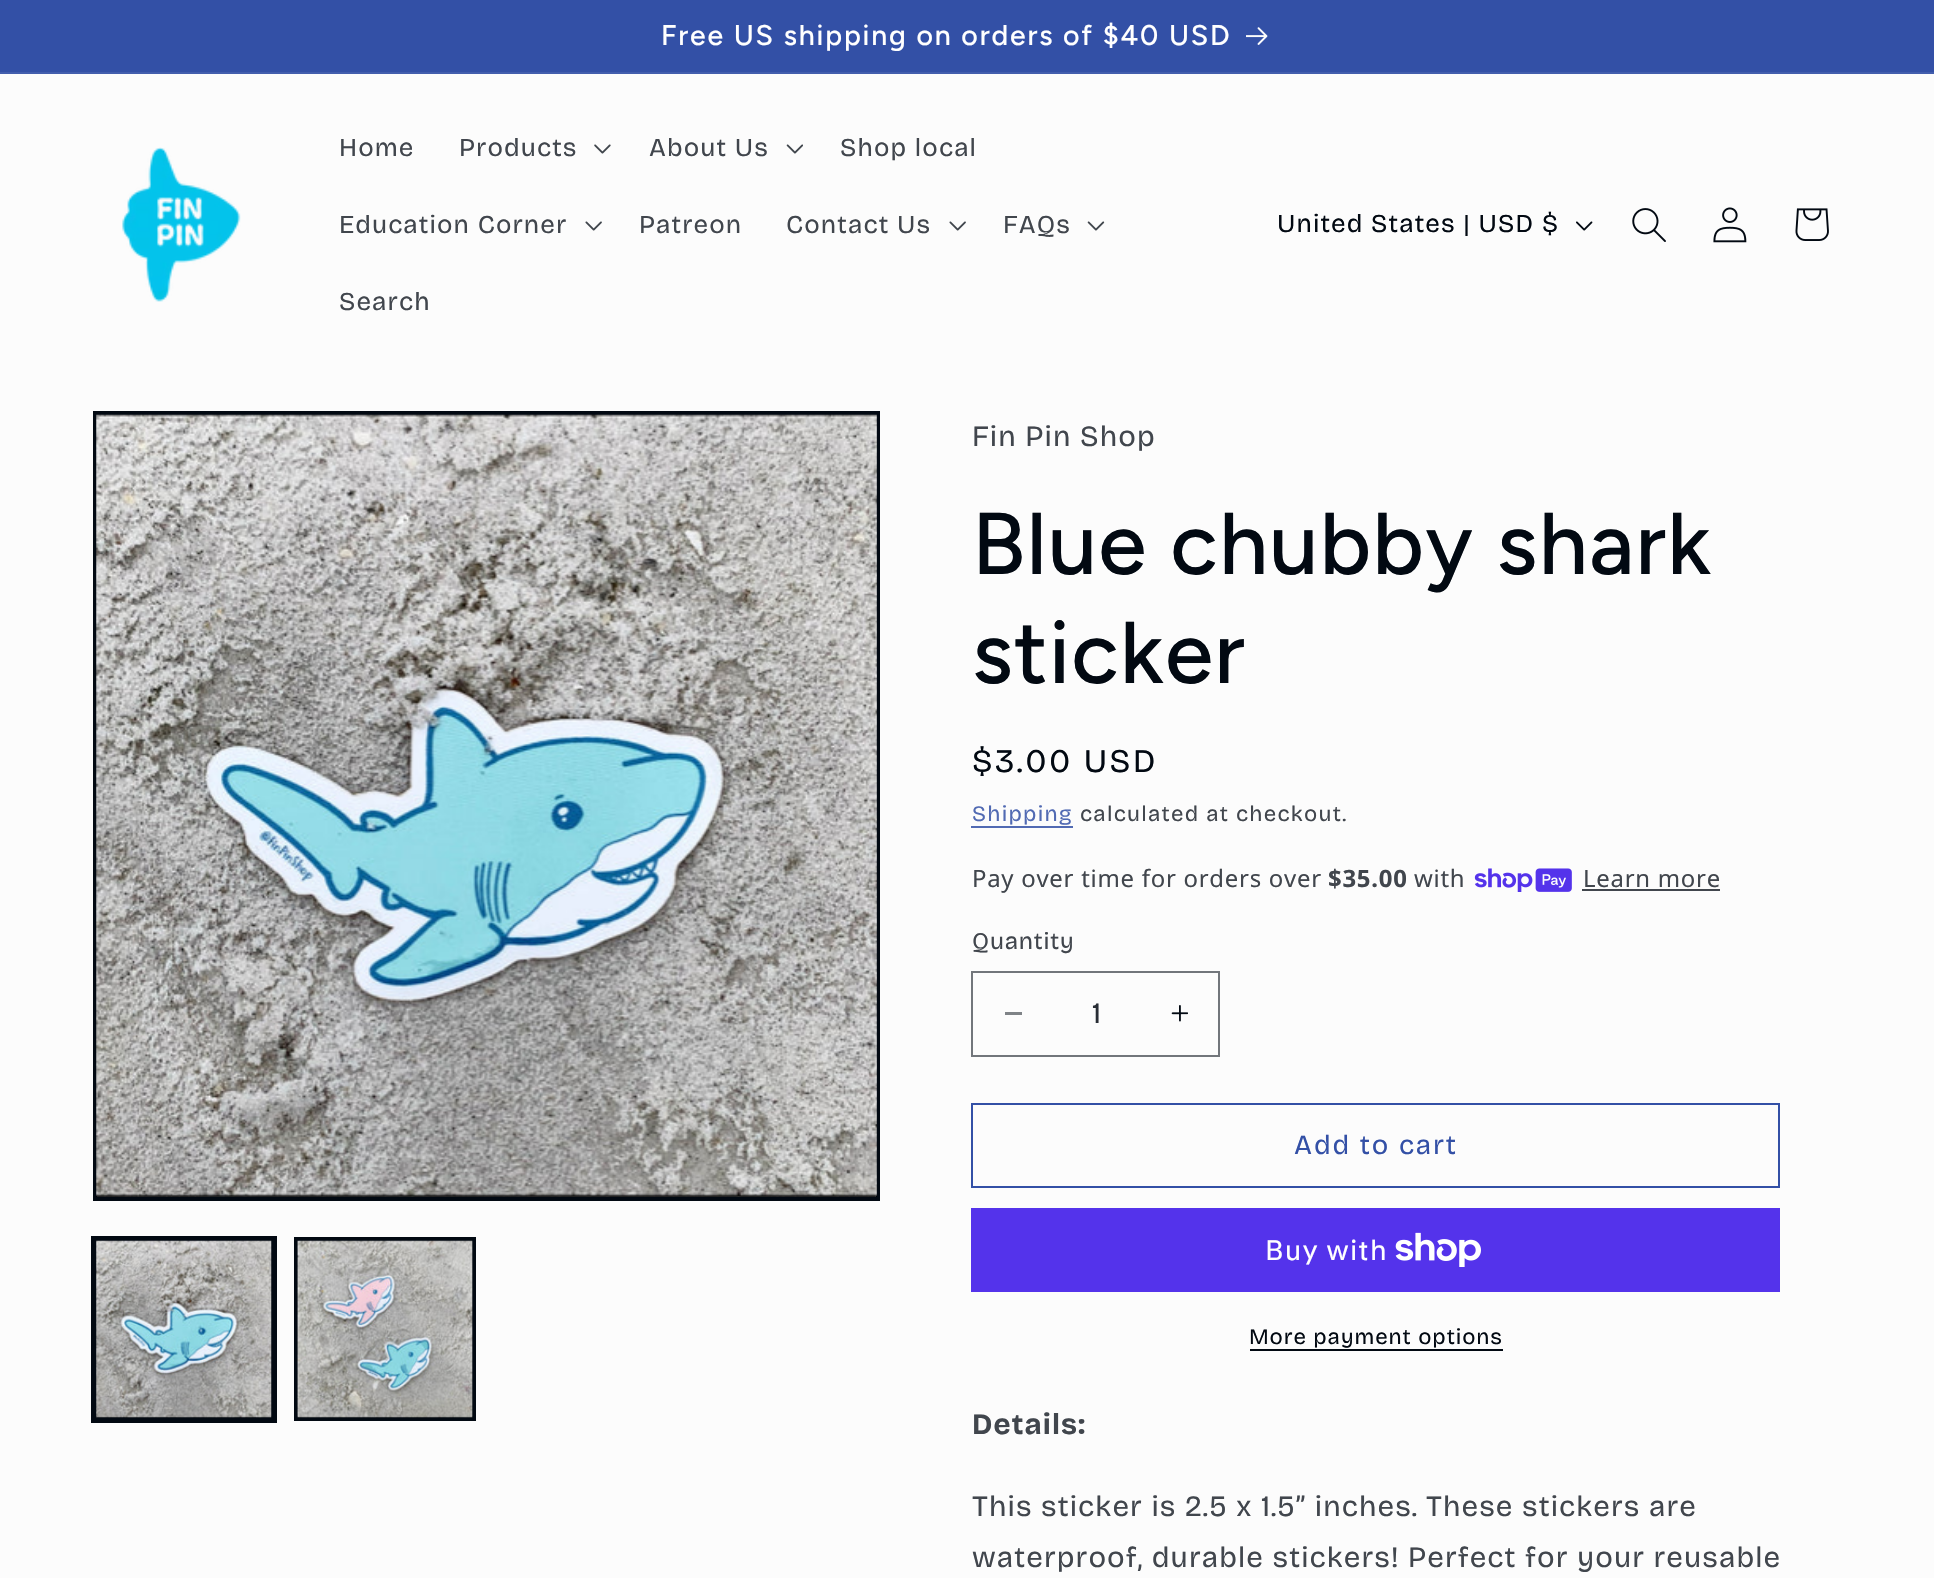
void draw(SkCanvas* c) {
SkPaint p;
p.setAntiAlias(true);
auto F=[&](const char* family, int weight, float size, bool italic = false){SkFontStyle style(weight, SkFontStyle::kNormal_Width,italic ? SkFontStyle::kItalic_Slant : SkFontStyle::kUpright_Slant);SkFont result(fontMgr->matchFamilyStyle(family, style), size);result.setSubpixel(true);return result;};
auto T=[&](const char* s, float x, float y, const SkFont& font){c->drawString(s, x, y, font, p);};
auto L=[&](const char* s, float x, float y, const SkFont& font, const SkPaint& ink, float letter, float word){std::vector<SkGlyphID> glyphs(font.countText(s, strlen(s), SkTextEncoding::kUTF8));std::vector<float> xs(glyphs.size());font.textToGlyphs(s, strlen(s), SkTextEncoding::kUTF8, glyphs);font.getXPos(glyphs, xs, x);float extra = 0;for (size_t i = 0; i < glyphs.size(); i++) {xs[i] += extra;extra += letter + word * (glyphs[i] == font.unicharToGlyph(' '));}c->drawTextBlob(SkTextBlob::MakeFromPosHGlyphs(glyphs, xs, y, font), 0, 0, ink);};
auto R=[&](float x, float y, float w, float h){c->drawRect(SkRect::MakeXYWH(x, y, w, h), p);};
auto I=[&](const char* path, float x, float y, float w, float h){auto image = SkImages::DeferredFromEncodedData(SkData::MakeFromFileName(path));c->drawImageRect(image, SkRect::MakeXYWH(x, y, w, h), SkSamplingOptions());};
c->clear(0xfffcfcfc);
p.setColor(0xff3350a6);
R(0,0,1934,72);
p.setColor(0xff435ead);
R(0,72,1934,2);
auto f1 = F("Figtree",500,28.4);
p.setColor(0xffffffff);
L("Free US shipping on orders of $40 USD",661,45,f1,p,1.85,0);
I("1.png",1246,27,22,18);
I("2.png",122,147,119,155);
auto f2 = F("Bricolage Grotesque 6",400,25.75);
p.setColor(0xff41464d);
L("Home",339,156,f2,p,1.1,0);
L("Products",459,156,f2,p,1.1,0);
I("3.png",594,144,17,10);
L("About Us",649,156,f2,p,1.1,0);
I("4.png",786,144,17,10);
L("Shop local",840,156,f2,p,1.1,0);
L("Education Corner",339,233,f2,p,1.1,0);
I("5.png",585,221,17,10);
L("Patreon",639,233,f2,p,1.1,0);
L("Contact Us",786,233,f2,p,1.1,0);
I("5.png",949,221,17,10);
L("FAQs",1003,233,f2,p,1.1,0);
I("6.png",1087,221,18,10);
L("Search",339,310,f2,p,1.1,0);
p.setColor(0xff020912);
L("United States | USD $",1277,232,f2,p,1.1,0);
I("7.png",1576,221,17,10);
I("8.png",1632,208,34,34);
I("9.png",1713,207,34,36);
I("10.png",1795,208,34,33);
p.setStroke(true);
p.setStrokeWidth(4);
c->drawRect(SkRect::MakeXYWH(95,413,783,786),p);
I("11.png",96,414,781,783);
p.setStrokeWidth(2);
c->drawRect(SkRect::MakeXYWH(92,1237,184,185),p);
p.setStrokeWidth(4);
c->drawRect(SkRect::MakeXYWH(95,1239,178,180),p);
I("12.png",96,1240,176,178);
c->drawRect(SkRect::MakeXYWH(296,1239,178,180),p);
I("13.png",297,1240,176,178);
auto f3 = F("Bricolage Grotesque",400,29.4);
p.setStroke(false);
p.setColor(0xff41464d);
L("Fin Pin Shop",972,446,f3,p,1.1,0);
auto f4 = F("Figtree",500,87.5);
p.setColor(0xff020912);
L("Blue chubby shark",972,574,f4,p,1.3,0);
L("sticker",972,683,f4,p,1.3,0);
auto f5 = F("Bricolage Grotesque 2",400,33);
L("$3.00 USD",972,772,f5,p,2.5,0);
auto f6 = F("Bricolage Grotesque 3",400,22);
p.setColor(0xff516ab3);
L("Shipping",972,821,f6,p,1.25,0);
R(971,826,102,2);
p.setColor(0xff41464d);
L("calculated at checkout.",1080,821,f6,p,1.25,0);
auto f7 = F("Noto Sans",400,23.9);
L("Pay over time for orders over",972,887,f7,p,.75,0);
auto f8 = F("Noto Sans",700,23.9);
L("$35.00",1328,887,f8,p,.75,0);
L("with",1414,887,f7,p,.75,0);
I("14.png",1474,868,98,24);
L("Learn more",1583,887,f7,p,.75,0);
R(1582,889,138,2);
auto f9 = F("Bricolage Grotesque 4",400,23.9);
L("Quantity",972,949,f9,p,.75,0);
p.setColor(0xff7f8387);
R(1005,1012,17,3);
I("15.png",1171,1005,17,17);
p.setStroke(true);
p.setStrokeWidth(2);
p.setColor(0xff72767b);
c->drawRect(SkRect::MakeXYWH(972,972,247,84),p);
p.setStroke(false);
p.setColor(0xff282d35);
T("1",1092,1023,f3);
p.setStroke(true);
p.setColor(0xff3350a6);
c->drawRect(SkRect::MakeXYWH(972,1104,807,83),p);
auto f10 = F("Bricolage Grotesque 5",400,27.5);
p.setStroke(false);
L("Add to cart",1294,1154,f10,p,1.85,0);
p.setColor(0xff5433eb);
R(971,1208,809,84);
auto f11 = F("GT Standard",400,28);
p.setColor(0xffffffff);
L("Buy with",1265,1260,f11,p,1.1,0);
I("16.png",1395,1232,86,35);
p.setColor(0xff020912);
L("More payment options",1249,1344,f6,p,.9,0);
R(1250,1349,253,2);
auto f12 = F("Bricolage Grotesque",700,29.4);
p.setColor(0xff41464d);
L("Details:",972,1434,f12,p,1.1,0);
L("This sticker is 2.5 x 1.5” inches.",972,1516,f3,p,1.1,0);
L("These stickers are",1426,1516,f3,p,1.1,0);
L("waterproof, durable stickers! Perfect for your reusable",972,1567,f3,p,1.1,0);
}
